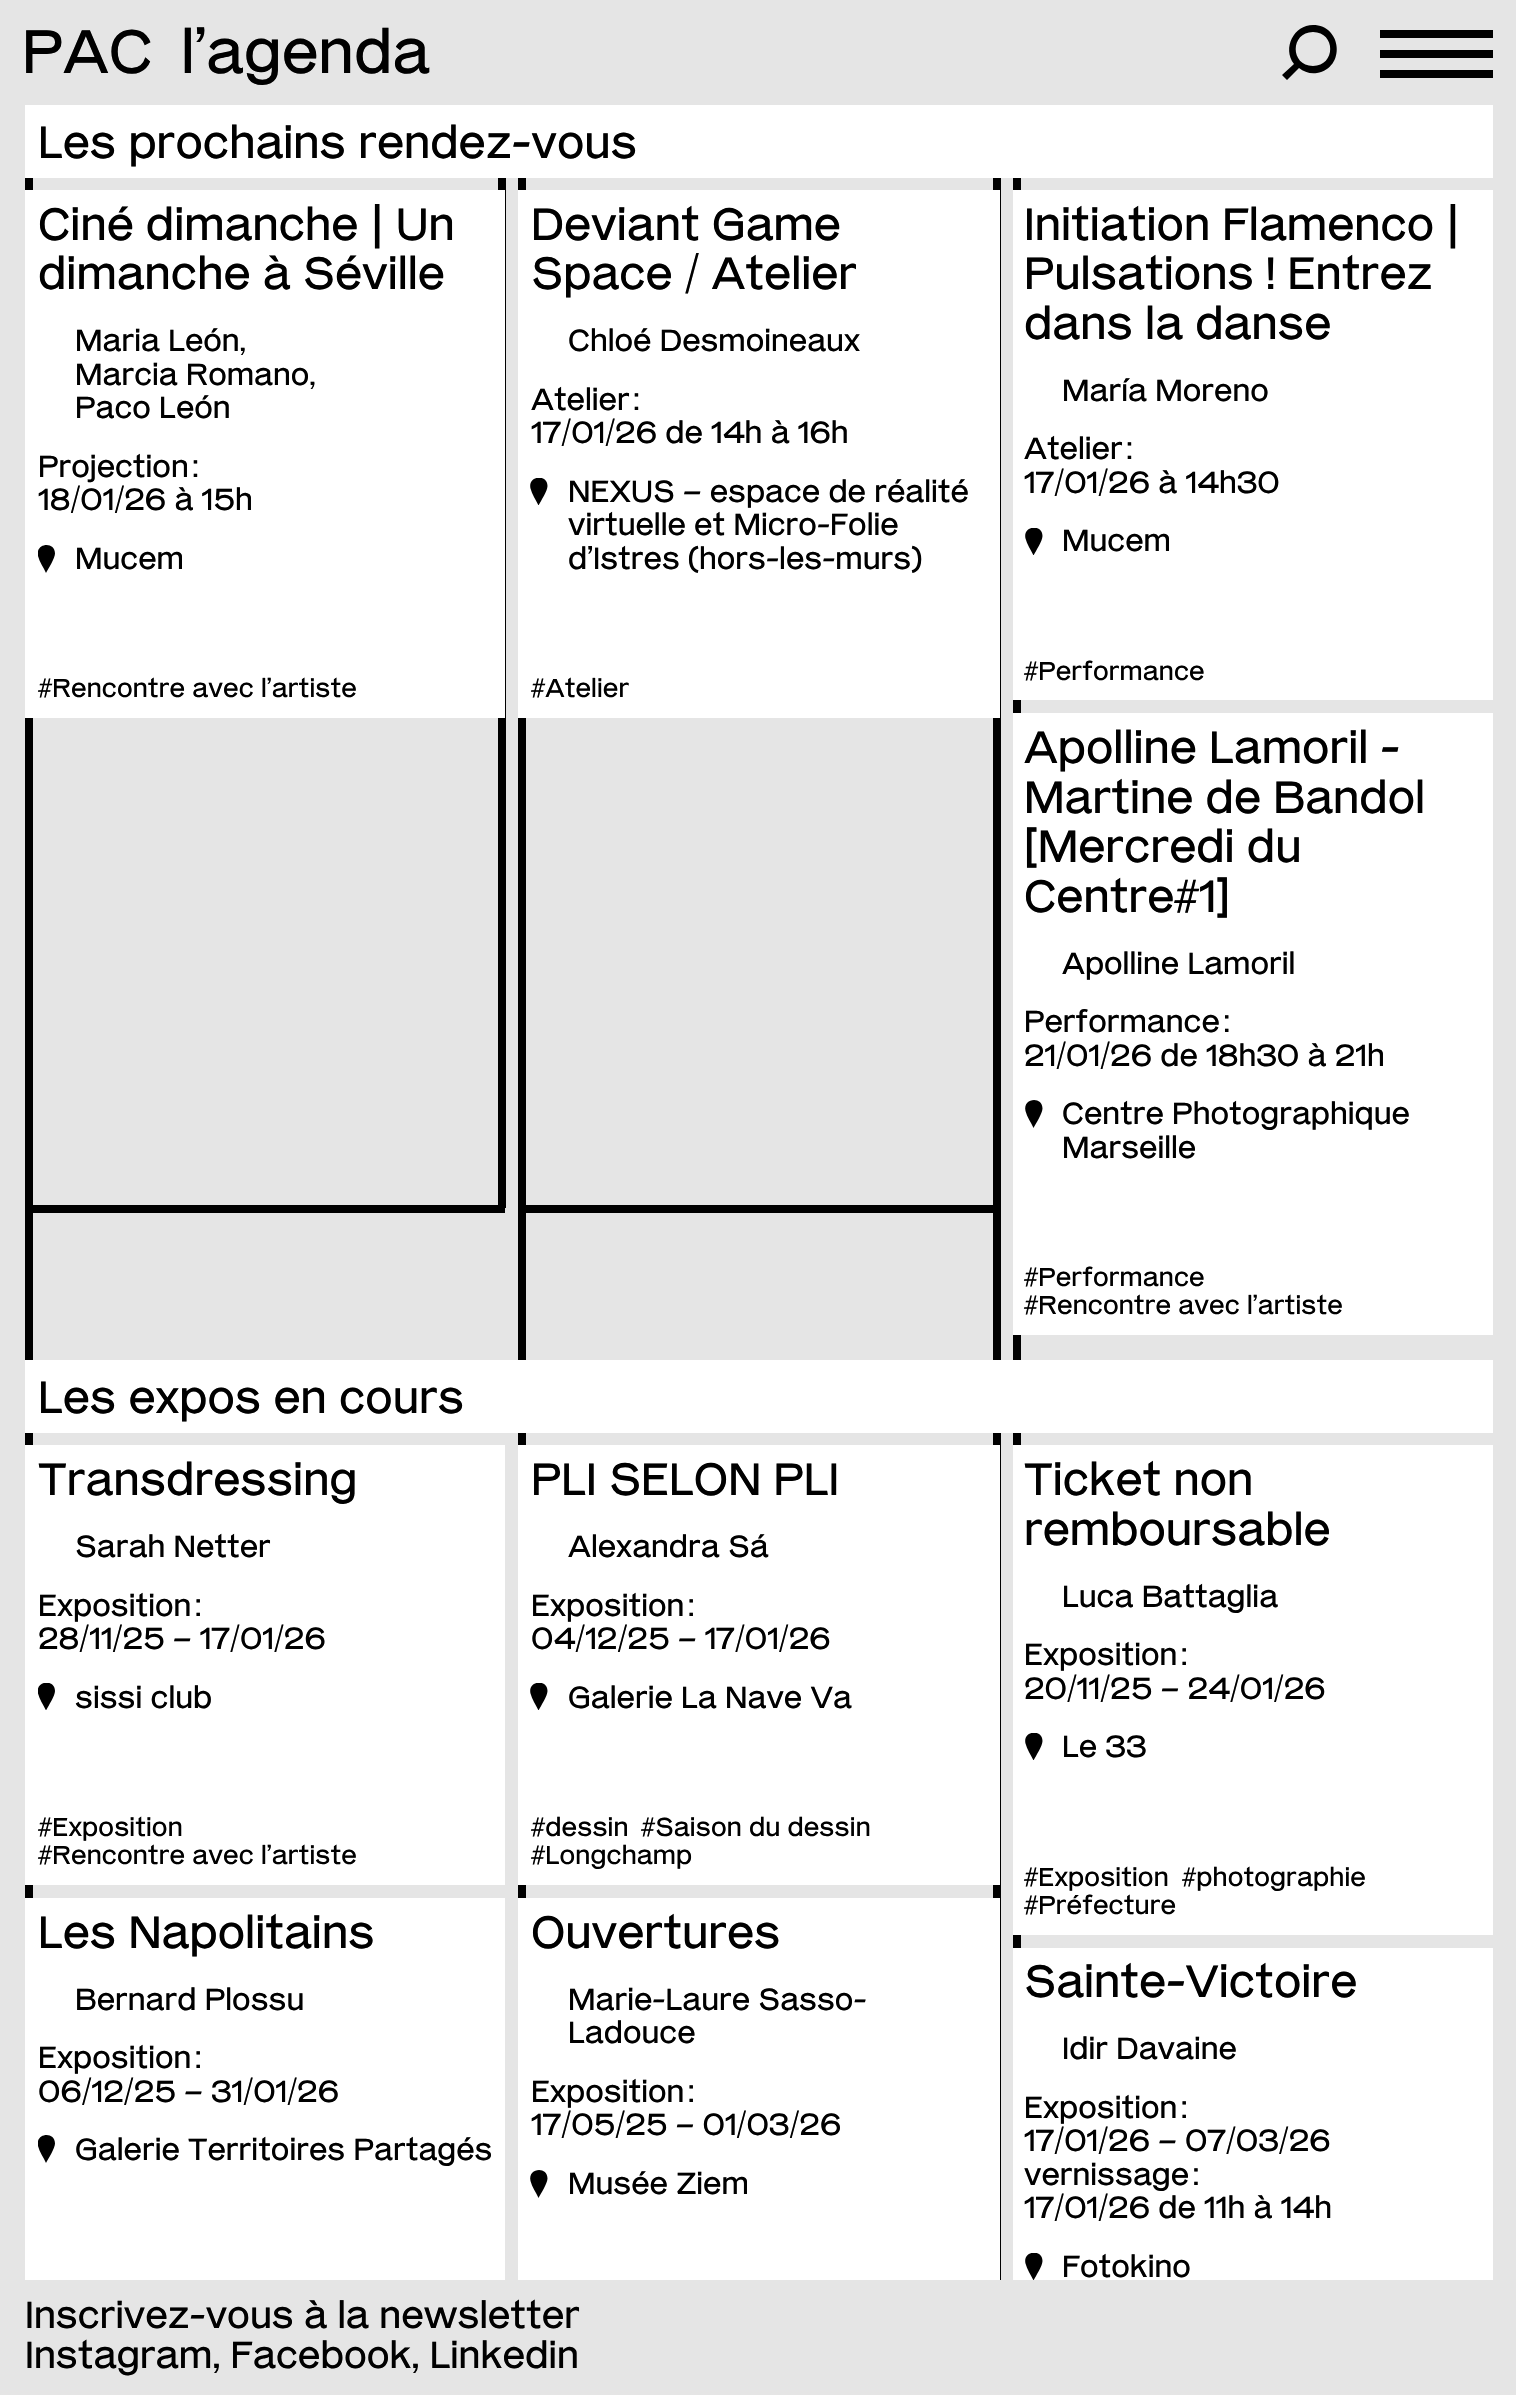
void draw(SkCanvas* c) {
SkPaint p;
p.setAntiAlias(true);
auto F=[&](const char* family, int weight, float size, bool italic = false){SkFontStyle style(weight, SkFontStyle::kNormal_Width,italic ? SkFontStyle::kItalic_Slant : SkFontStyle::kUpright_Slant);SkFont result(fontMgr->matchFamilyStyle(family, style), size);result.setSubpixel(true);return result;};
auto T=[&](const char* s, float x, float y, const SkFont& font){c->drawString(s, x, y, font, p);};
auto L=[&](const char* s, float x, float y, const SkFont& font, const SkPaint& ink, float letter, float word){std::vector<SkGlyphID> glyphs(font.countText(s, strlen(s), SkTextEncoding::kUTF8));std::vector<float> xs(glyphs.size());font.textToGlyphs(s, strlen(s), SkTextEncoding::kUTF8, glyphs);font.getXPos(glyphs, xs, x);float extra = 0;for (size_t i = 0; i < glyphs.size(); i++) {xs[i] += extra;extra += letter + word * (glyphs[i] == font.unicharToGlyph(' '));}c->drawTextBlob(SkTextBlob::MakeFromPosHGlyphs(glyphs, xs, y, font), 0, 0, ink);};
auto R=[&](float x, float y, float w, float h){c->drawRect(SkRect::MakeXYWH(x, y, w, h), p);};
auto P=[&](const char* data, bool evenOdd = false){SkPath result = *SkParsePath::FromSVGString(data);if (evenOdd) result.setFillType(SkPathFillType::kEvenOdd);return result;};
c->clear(0xffe5e5e5);
auto f1 = F("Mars",400,61);
p.setColor(0xff000000);
T("PAC",22,73,f1);
T("l’agenda",181,73,f1);
c->drawPath(P("M1313 25c-19 0-31 23-19 39l-12 11l5 5l12-12c5 4 11 6 18 5c29-5 25-48-4-48zm0 41c-23 0-23-34 0-34c23 0 23 34 0 34z"),p);
R(1380,50,113,8);
R(1380,30,113,8);
R(1380,70,113,8);
p.setColor(0xffffffff);
R(25,105,1468,73);
auto f2 = F("Mars",400,45);
p.setColor(0xff000000);
T("Les prochains rendez-vous",38,158,f2);
R(25,178,8,1720);
R(25,1205,480,8);
R(498,178,8,1030);
p.setColor(0xffffffff);
R(25,190,480,528);
p.setColor(0xff000000);
T("Ciné dimanche | Un",38,240,f2);
T("dimanche à Séville",38,289,f2);
auto f3 = F("Mars",400,30.5);
T("Maria León,",75,351,f3);
T("Marcia Romano,",75,385,f3);
T("Paco León",75,418,f3);
T("Projection :",38,477,f3);
T("18/01/26 à 15h",38,510,f3);
c->save();
c->clipRect(SkRect::MakeXYWH(38,545,37,28));
c->drawPath(P("M55 553.5c0 5-7 15.5-9 19.5c-2.5-5.5-6.5-11-8-17c-3-13 17-15 17-2.5"),p);
c->restore();
T("Mucem",75,569,f3);
auto f4 = F("Mars",400,25.75);
L("#Rencontre avec l’artiste",38,697,f4,p,.1,0);
R(518,178,8,1720);
R(518,1205,482,8);
R(993,178,8,2102);
p.setColor(0xffffffff);
R(518,190,482,528);
p.setColor(0xff000000);
T("Deviant Game",531,240,f2);
T("Space / Atelier",531,289,f2);
T("Chloé Desmoineaux",568,351,f3);
T("Atelier :",531,410,f3);
T("17/01/26 de 14h à 16h",531,443,f3);
c->save();
c->clipRect(SkRect::MakeXYWH(530,478,38,27));
c->drawPath(P("M547.5 486c0 5-7 15.5-9 19.5c-2.5-5.5-6.5-11-8-17c-3-13 17-15 17-2.5"),p);
c->restore();
T("NEXUS – espace de réalité",568,502,f3);
T("virtuelle et Micro-Folie",568,535,f3);
T("d’Istres (hors-les-murs)",568,569,f3);
L("#Atelier",531,697,f4,p,.1,0);
R(1013,178,8,1770);
p.setColor(0xffffffff);
R(1013,190,480,510);
p.setColor(0xff000000);
T("Initiation Flamenco |",1024,240,f2);
T("Pulsations ! Entrez",1024,289,f2);
T("dans la danse",1024,339,f2);
T("María Moreno",1062,401,f3);
T("Atelier :",1024,459,f3);
T("17/01/26 à 14h30",1024,493,f3);
c->save();
c->clipRect(SkRect::MakeXYWH(1025,528,38,27));
c->drawPath(P("M1042.5 536c0 5-7 15.5-9 19.5c-2.5-5.5-6.5-11-8-17c-3-13 17-15 17-2.5"),p);
c->restore();
T("Mucem",1062,551,f3);
L("#Performance",1024,680,f4,p,.1,0);
p.setColor(0xffffffff);
R(1013,713,480,622);
p.setColor(0xff000000);
T("Apolline Lamoril -",1024,763,f2);
T("Martine de Bandol",1024,813,f2);
T("[Mercredi du",1024,862,f2);
T("Centre#1]",1024,912,f2);
T("Apolline Lamoril",1062,974,f3);
T("Performance :",1024,1032,f3);
T("21/01/26 de 18h30 à 21h",1024,1066,f3);
c->drawPath(P("M1042.5 1108.5c0 5-7 15.5-9 19.5c-2.5-5.5-6.5-11-8-17c-3-13 17-15 17-2.5"),p);
T("Centre Photographique",1062,1124,f3);
T("Marseille",1062,1158,f3);
L("#Performance",1024,1286,f4,p,.1,0);
L("#Rencontre avec l’artiste",1024,1314,f4,p,.1,0);
p.setColor(0xffffffff);
R(25,1360,1468,73);
p.setColor(0xff000000);
T("Les expos en cours",38,1413,f2);
p.setColor(0xffffffff);
R(25,1445,480,440);
p.setColor(0xff000000);
T("Transdressing",38,1495,f2);
T("Sarah Netter",75,1557,f3);
T("Exposition :",38,1616,f3);
T("28/11/25 – 17/01/26",38,1649,f3);
c->save();
c->clipRect(SkRect::MakeXYWH(38,1683,37,27));
c->drawPath(P("M55 1691c0 5-7 15.5-9 19.5c-2.5-5.5-6.5-11-8-17c-3-13 17-15 17-2.5"),p);
c->restore();
T("sissi club",75,1708,f3);
L("#Exposition",38,1836,f4,p,.1,0);
L("#Rencontre avec l’artiste",38,1864,f4,p,.1,0);
p.setColor(0xffffffff);
R(518,1445,482,440);
p.setColor(0xff000000);
T("PLI SELON PLI",531,1495,f2);
T("Alexandra Sá",568,1557,f3);
T("Exposition :",531,1616,f3);
T("04/12/25 – 17/01/26",531,1649,f3);
c->save();
c->clipRect(SkRect::MakeXYWH(530,1683,38,27));
c->drawPath(P("M547.5 1691c0 5-7 15.5-9 19.5c-2.5-5.5-6.5-11-8-17c-3-13 17-15 17-2.5"),p);
c->restore();
T("Galerie La Nave Va",568,1708,f3);
L("#dessin",531,1836,f4,p,.1,0);
L("#Saison du dessin",641,1836,f4,p,.1,0);
L("#Longchamp",531,1864,f4,p,.1,0);
p.setColor(0xffffffff);
R(1013,1445,480,490);
p.setColor(0xff000000);
T("Ticket non",1024,1495,f2);
T("remboursable",1024,1545,f2);
T("Luca Battaglia",1062,1607,f3);
T("Exposition :",1024,1665,f3);
T("20/11/25 – 24/01/26",1024,1699,f3);
c->save();
c->clipRect(SkRect::MakeXYWH(1025,1733,38,27));
c->drawPath(P("M1042.5 1741c0 5-7 15.5-9 19.5c-2.5-5.5-6.5-11-8-17c-3-13 17-15 17-2.5"),p);
c->restore();
T("Le 33",1062,1757,f3);
L("#Exposition",1024,1886,f4,p,.1,0);
L("#photographie",1182,1886,f4,p,.1,0);
L("#Préfecture",1024,1914,f4,p,.1,0);
p.setColor(0xffffffff);
R(25,1898,480,382);
p.setColor(0xff000000);
T("Les Napolitains",38,1948,f2);
T("Bernard Plossu",75,2010,f3);
T("Exposition :",38,2068,f3);
T("06/12/25 – 31/01/26",38,2102,f3);
c->save();
c->clipRect(SkRect::MakeXYWH(38,2135,37,28));
c->drawPath(P("M55 2143.5c0 5-7 15.5-9 19.5c-2.5-5.5-6.5-11-8-17c-3-13 17-15 17-2.5"),p);
c->restore();
T("Galerie Territoires Partagés",75,2160,f3);
p.setColor(0xffffffff);
R(518,1898,482,382);
p.setColor(0xff000000);
T("Ouvertures",531,1948,f2);
T("Marie-Laure Sasso-",568,2010,f3);
T("Ladouce",568,2043,f3);
T("Exposition :",531,2102,f3);
T("17/05/25 – 01/03/26",531,2135,f3);
c->drawPath(P("M547.5 2178.5c0 5-7 15.5-9 19.5c-2.5-5.5-6.5-11-8-17c-3-13 17-15 17-2.5"),p);
T("Musée Ziem",568,2194,f3);
p.setColor(0xffffffff);
R(1013,1948,480,332);
p.setColor(0xff000000);
T("Sainte-Victoire",1024,1997,f2);
T("Idir Davaine",1062,2059,f3);
T("Exposition :",1024,2118,f3);
T("17/01/26 – 07/03/26",1024,2151,f3);
T("vernissage :",1024,2185,f3);
T("17/01/26 de 11h à 14h",1024,2218,f3);
c->save();
c->clipRect(SkRect::MakeXYWH(1025,2253,38,27));
c->drawPath(P("M1042.5 2261c0 5-7 15.5-9 19.5c-2.5-5.5-6.5-11-8-17c-3-13 17-15 17-2.5"),p);
c->restore();
T("Fotokino",1062,2277,f3);
auto f5 = F("Mars",400,37.5);
T("Inscrivez-vous à la newsletter",25,2328,f5);
T("Instagram, Facebook, Linkedin",25,2368,f5);
}
